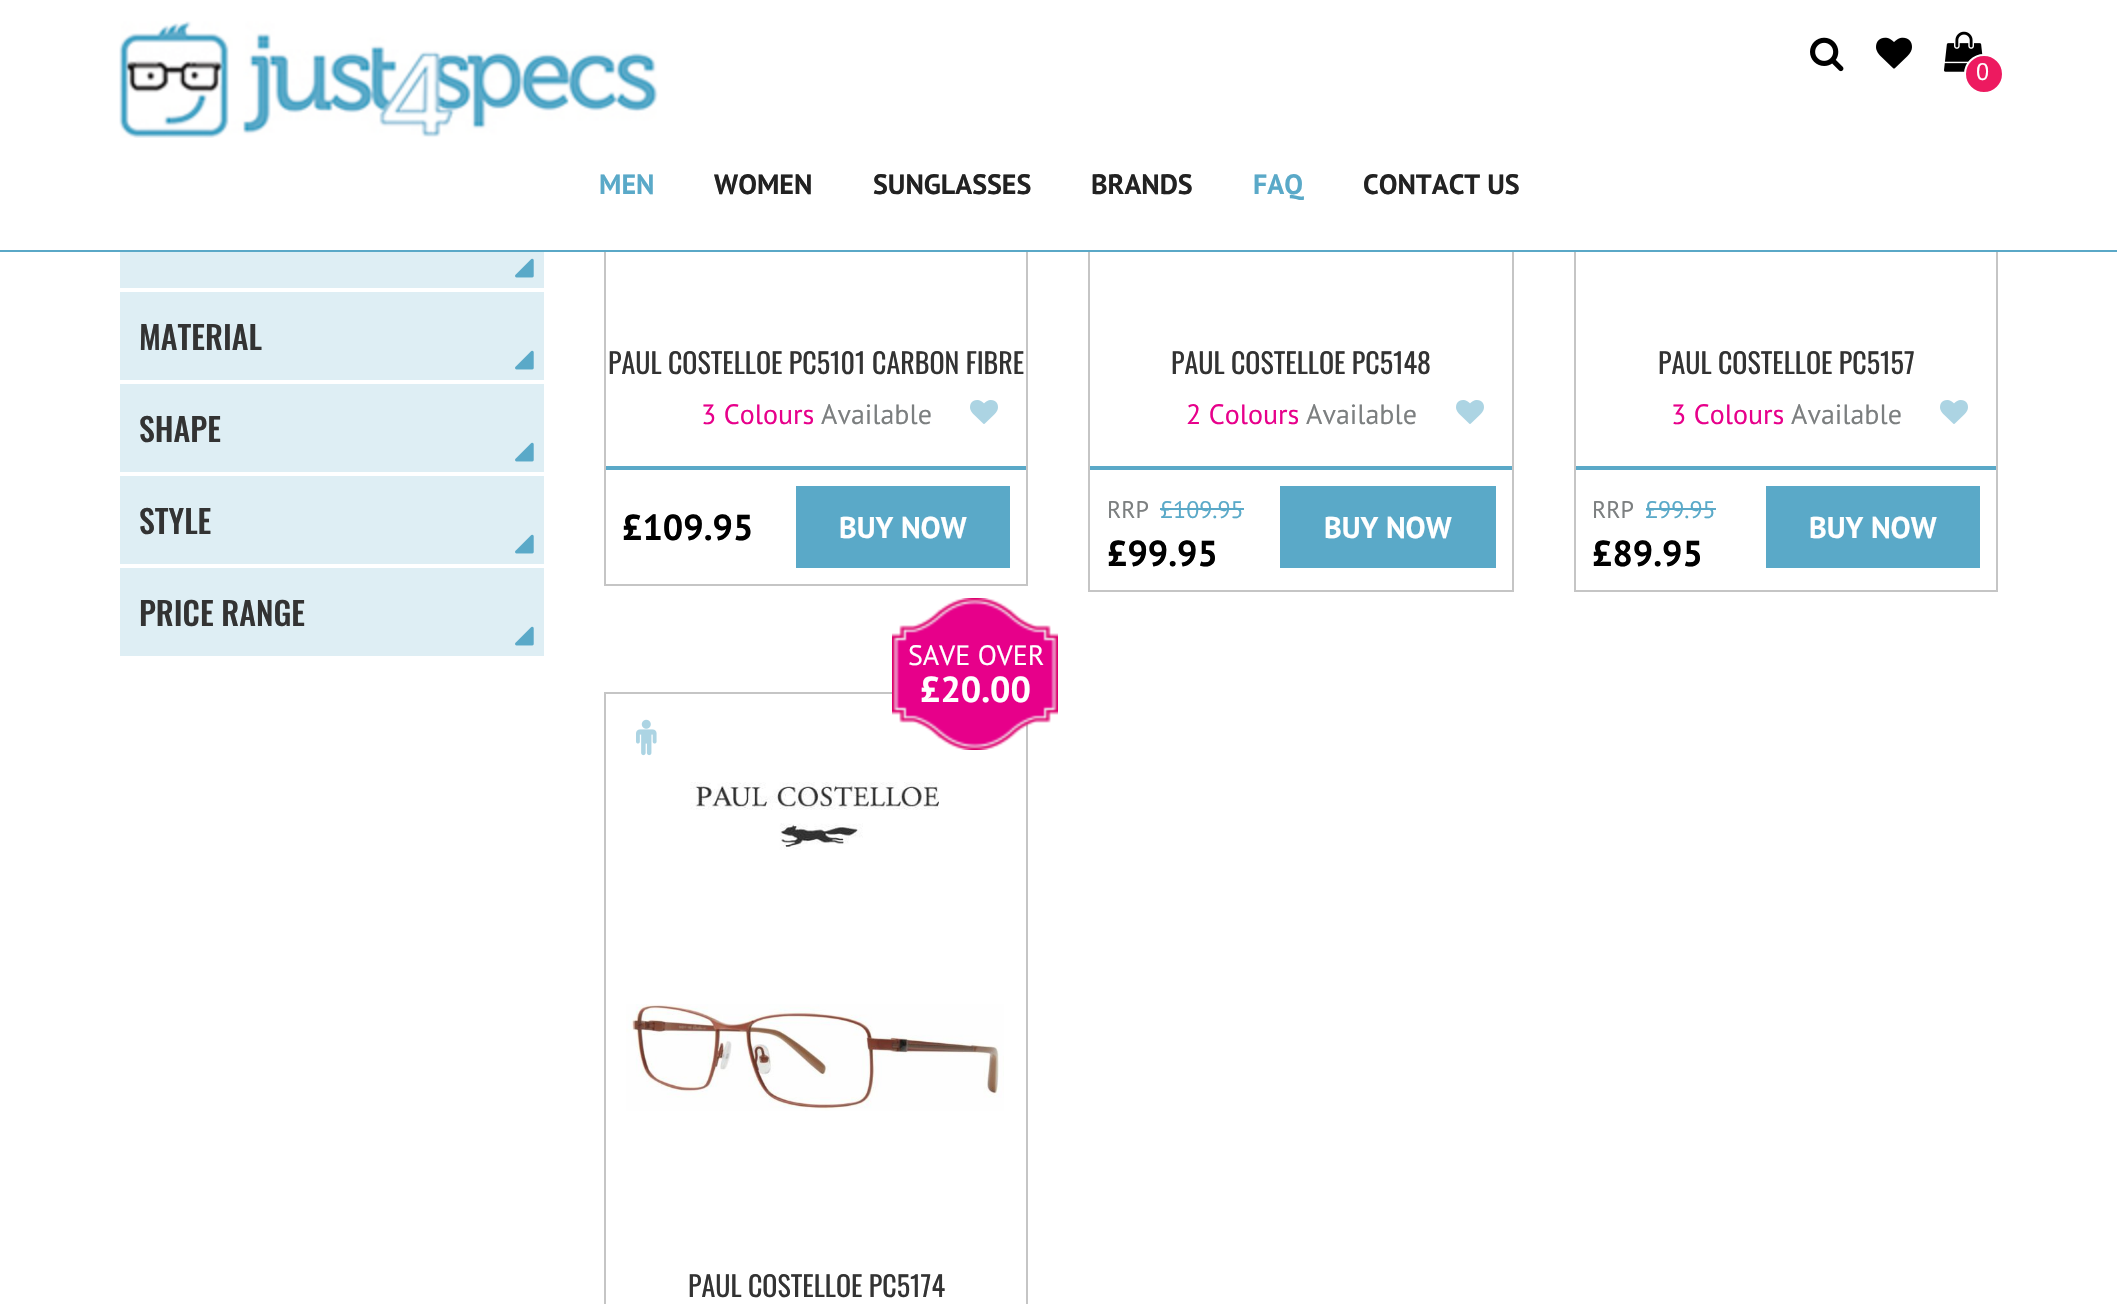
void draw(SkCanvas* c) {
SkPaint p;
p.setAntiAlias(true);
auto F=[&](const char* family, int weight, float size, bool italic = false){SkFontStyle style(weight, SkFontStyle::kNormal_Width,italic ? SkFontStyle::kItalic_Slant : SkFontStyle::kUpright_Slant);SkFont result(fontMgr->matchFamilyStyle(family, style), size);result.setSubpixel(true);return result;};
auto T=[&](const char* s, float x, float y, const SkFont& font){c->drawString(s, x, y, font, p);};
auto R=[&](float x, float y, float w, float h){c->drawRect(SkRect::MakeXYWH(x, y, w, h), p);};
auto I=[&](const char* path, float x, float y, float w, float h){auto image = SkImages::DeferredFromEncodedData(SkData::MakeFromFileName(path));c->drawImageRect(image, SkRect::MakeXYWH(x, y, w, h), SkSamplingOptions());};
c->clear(0xffffffff);
p.setStroke(true);
p.setStrokeWidth(2);
p.setColor(0xffc5c5c5);
c->drawRect(SkRect::MakeXYWH(605,-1,422,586),p);
c->drawRect(SkRect::MakeXYWH(1089,-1,424,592),p);
c->drawRect(SkRect::MakeXYWH(1575,-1,422,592),p);
p.setStroke(false);
p.setColor(0xffffffff);
R(604,0,1394,250);
p.setColor(0xff5aa8c7);
R(0,250,2117,2);
I("1.png",119,21,539,117);
I("2.png",1810,37,34,35);
I("3.png",1876,37,36,32);
I("4.png",1944,31,39,41);
p.setColor(0xffed1a60);
c->drawCircle(1984,74,19,p);
p.setStroke(true);
p.setColor(0xffffffff);
c->drawCircle(1984,74,19,p);
auto f1 = F("PT Sans",400,24);
p.setStroke(false);
T("0",1976,80,f1);
auto f2 = F("PT Sans",700,28);
p.setColor(0xff5aa9c8);
T("MEN",599,194,f2);
p.setColor(0xff222222);
T("WOMEN",714,194,f2);
T("SUNGLASSES",873,194,f2);
T("BRANDS",1091,194,f2);
p.setColor(0xff5aa9c8);
T("FAQ",1253,194,f2);
p.setColor(0xff222222);
T("CONTACT US",1363,194,f2);
p.setColor(0xffdeeef4);
R(120,252,424,36);
I("5.png",515,258,19,20);
R(120,292,424,88);
auto f3 = F("Oswald",500,32);
p.setColor(0xff333333);
T("MATERIAL",139,350,f3);
I("5.png",515,350,19,20);
p.setColor(0xffdeeef4);
R(120,384,424,88);
p.setColor(0xff333333);
T("SHAPE",139,442,f3);
I("5.png",515,442,19,20);
p.setColor(0xffdeeef4);
R(120,476,424,88);
p.setColor(0xff333333);
T("STYLE",139,534,f3);
I("5.png",515,534,19,20);
p.setColor(0xffdeeef4);
R(120,568,424,88);
p.setColor(0xff333333);
T("PRICE RANGE",139,626,f3);
I("5.png",515,626,19,20);
auto f4 = F("Oswald",400,28);
T("PAUL COSTELLOE PC5101 CARBON FIBRE",608,374,f4);
auto f5 = F("PT Sans",400,28);
p.setColor(0xffe7008b);
T("3 Colours",701,424,f5);
p.setColor(0xff7c7f80);
T("Available",821,424,f5);
I("6.png",970,400,28,24);
p.setColor(0xff5aa9c8);
R(606,466,420,4);
auto f6 = F("PT Sans",700,36);
p.setColor(0xff000000);
T("£109.95",622,540,f6);
p.setColor(0xff5aa9c8);
R(796,486,214,82);
auto f7 = F("PT Sans",700,30);
p.setColor(0xffffffff);
T("BUY NOW",839,538,f7);
p.setColor(0xff333333);
T("PAUL COSTELLOE PC5148",1171,374,f4);
p.setColor(0xffe7008b);
T("2 Colours",1186,424,f5);
p.setColor(0xff7c7f80);
T("Available",1306,424,f5);
I("6.png",1456,400,28,24);
p.setColor(0xff5aa9c8);
R(1090,466,422,4);
p.setColor(0xff7c7f80);
T("RRP",1107,518,f1);
p.setColor(0xff5aa9c8);
T("£109.95",1160,518,f1);
R(1160,508,84,2);
p.setColor(0xff000000);
T("£99.95",1107,566,f6);
p.setColor(0xff5aa9c8);
R(1280,486,216,82);
p.setColor(0xffffffff);
T("BUY NOW",1324,538,f7);
p.setColor(0xff333333);
T("PAUL COSTELLOE PC5157",1658,374,f4);
p.setColor(0xffe7008b);
T("3 Colours",1671,424,f5);
p.setColor(0xff7c7f80);
T("Available",1791,424,f5);
I("6.png",1940,400,28,24);
p.setColor(0xff5aa9c8);
R(1576,466,420,4);
p.setColor(0xff7c7f80);
T("RRP",1592,518,f1);
p.setColor(0xff5aa9c8);
T("£99.95",1645,518,f1);
R(1646,508,70,2);
p.setColor(0xff000000);
T("£89.95",1592,566,f6);
p.setColor(0xff5aa9c8);
R(1766,486,214,82);
p.setColor(0xffffffff);
T("BUY NOW",1809,538,f7);
p.setStroke(true);
p.setColor(0xffc5c5c5);
c->drawRect(SkRect::MakeXYWH(605,693,422,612),p);
I("7.png",892,598,166,152);
p.setStroke(false);
p.setColor(0xffffffff);
T("SAVE OVER",908,665,f5);
T("£20.00",920,702,f6);
I("8.png",636,719,21,37);
I("9.png",690,782,249,68);
I("10.png",626,1004,378,107);
p.setColor(0xff333333);
T("PAUL COSTELLOE PC5174",688,1297,f4);
}
